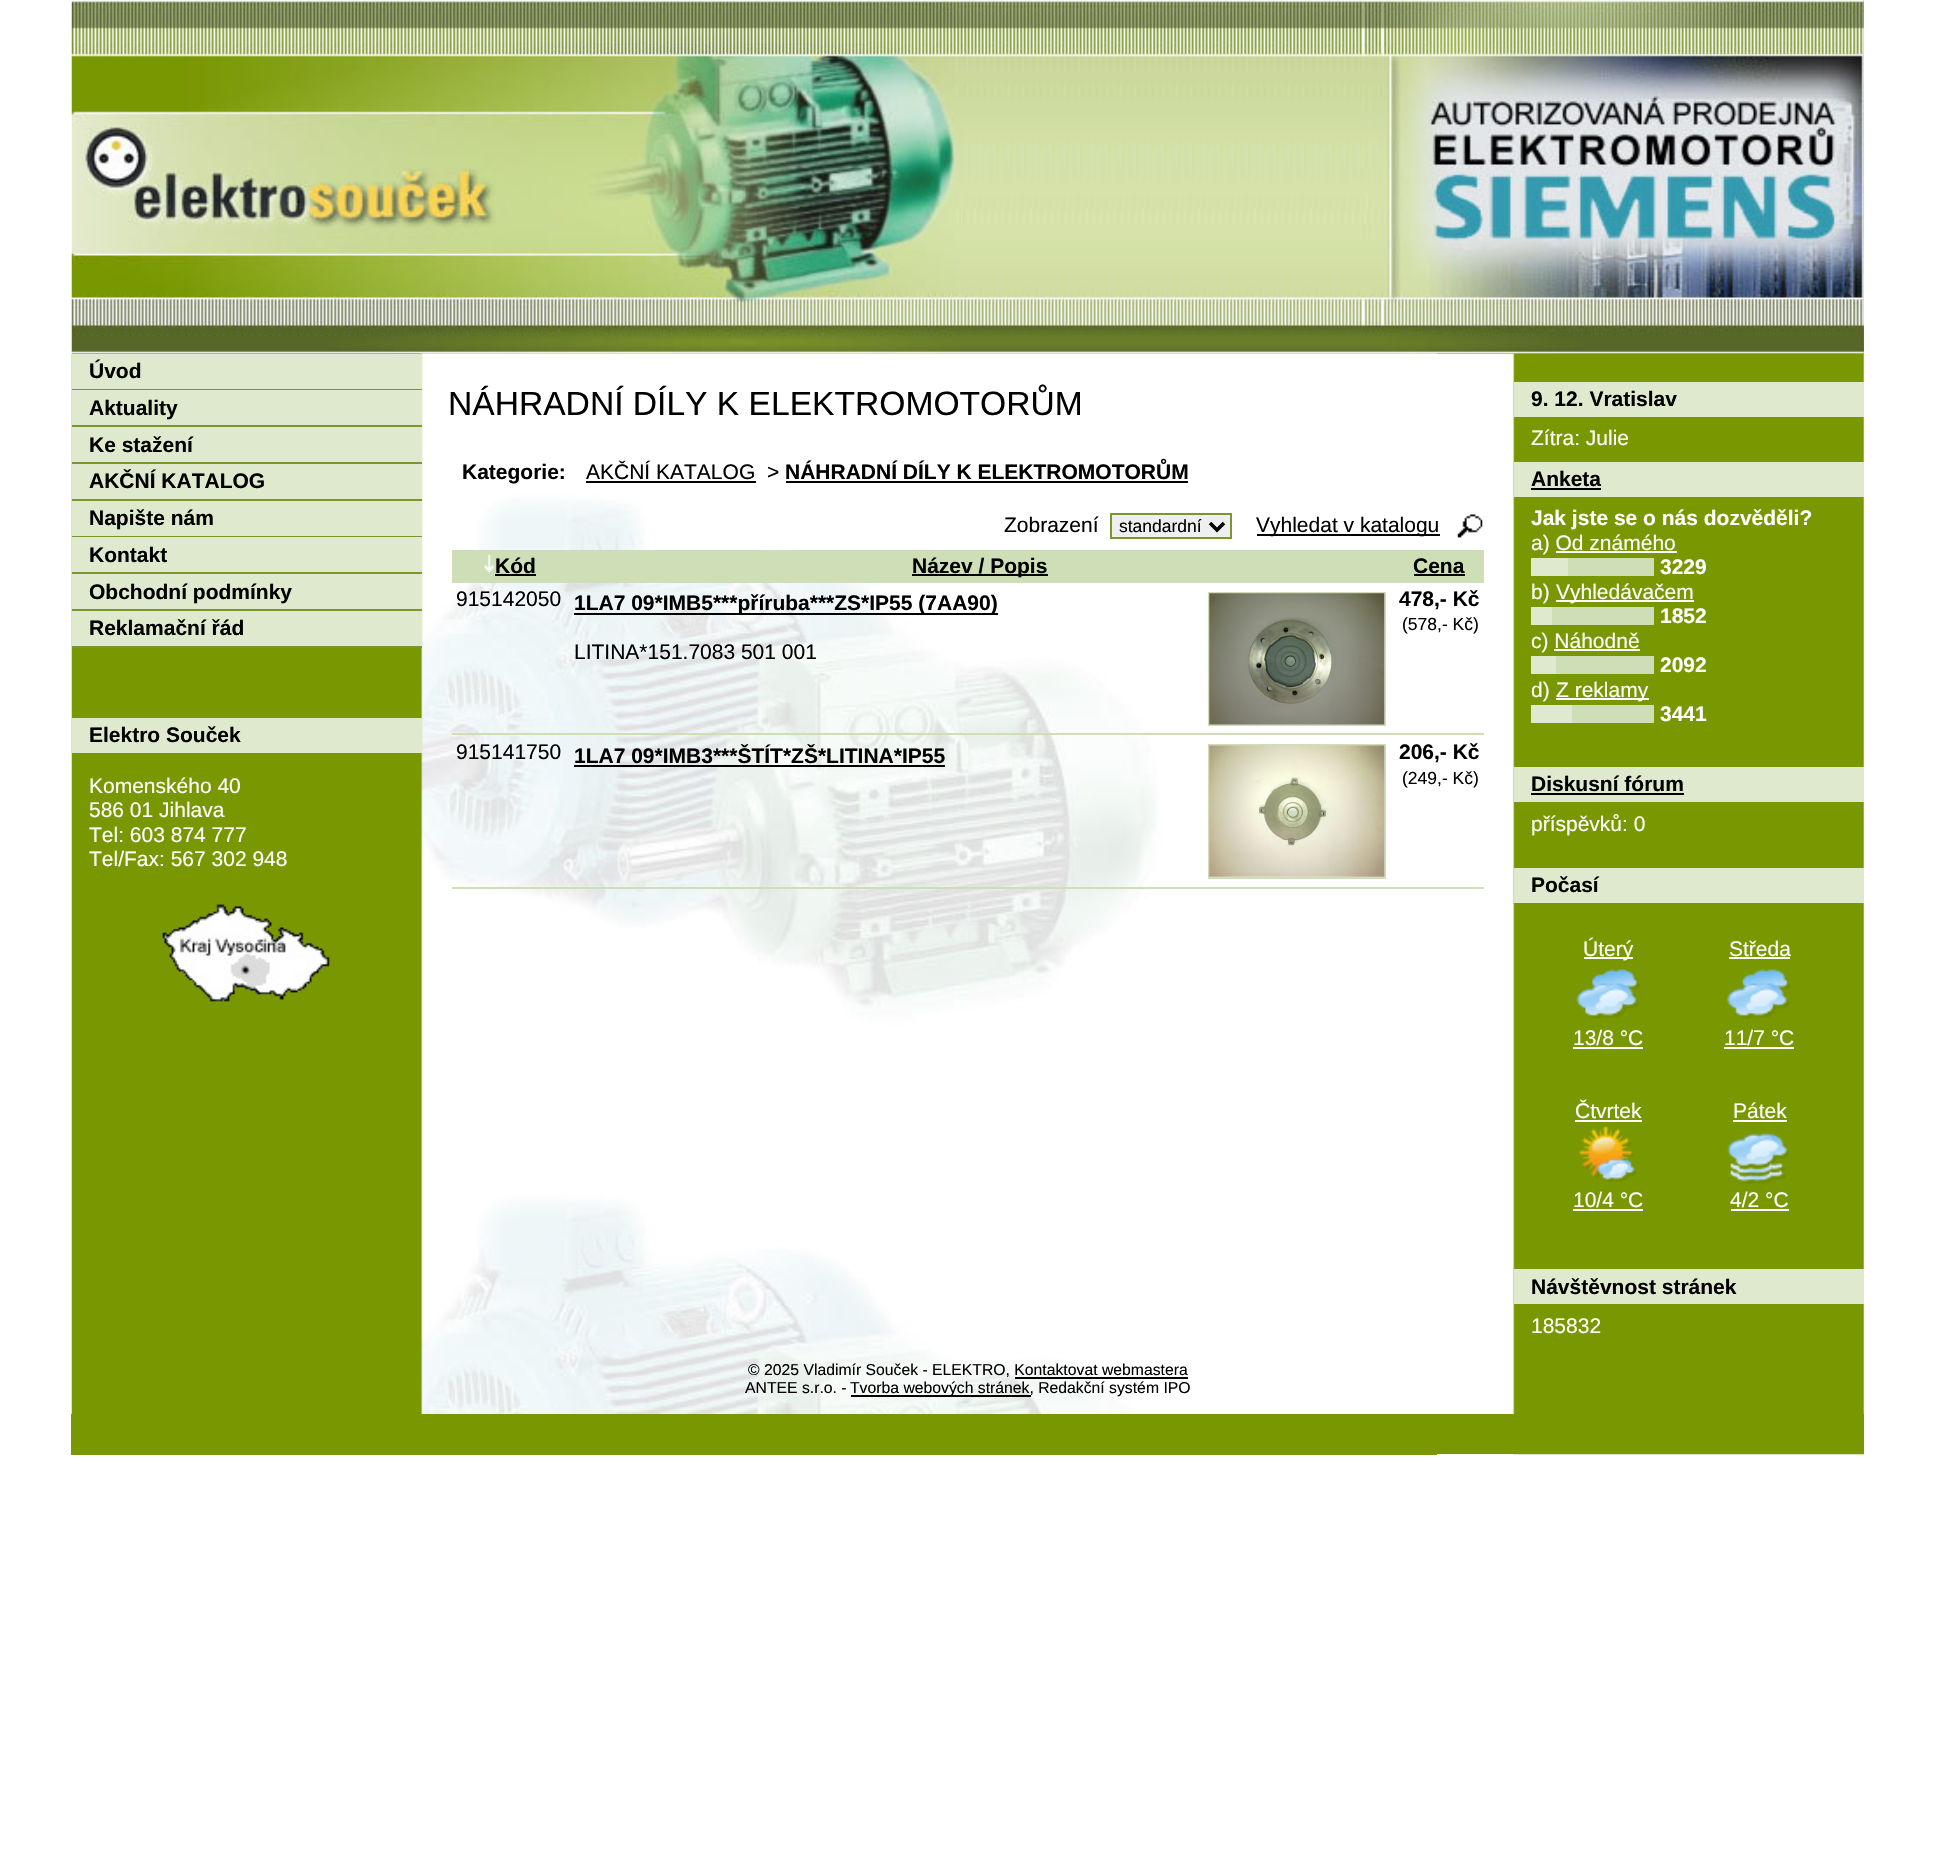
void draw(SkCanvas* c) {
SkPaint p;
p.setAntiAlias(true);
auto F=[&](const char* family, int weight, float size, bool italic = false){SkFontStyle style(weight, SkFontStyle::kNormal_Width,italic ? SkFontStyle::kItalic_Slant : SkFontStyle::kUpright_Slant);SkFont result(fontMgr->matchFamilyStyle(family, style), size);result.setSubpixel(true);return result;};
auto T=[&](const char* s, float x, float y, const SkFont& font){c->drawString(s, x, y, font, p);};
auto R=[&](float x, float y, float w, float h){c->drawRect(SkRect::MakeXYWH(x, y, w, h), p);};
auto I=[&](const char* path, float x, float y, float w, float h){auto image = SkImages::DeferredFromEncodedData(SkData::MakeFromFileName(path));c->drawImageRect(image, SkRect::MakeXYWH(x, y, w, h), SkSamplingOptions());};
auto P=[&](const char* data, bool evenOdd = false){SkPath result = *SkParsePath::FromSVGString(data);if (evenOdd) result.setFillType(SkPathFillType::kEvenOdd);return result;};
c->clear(0xffffffff);
p.setColor(0xff799701);
R(72,0,1792,354);
I("1.png",71,0,1793,354);
I("2.png",72,353,1365,1061);
I("3.png",71,353,1793,1102);
p.setColor(0xff7b9629);
R(72,389,350,259);
p.setColor(0xffdee9cd);
R(72,354,350,35);
auto f1 = F("Liberation Sans",700,21);
p.setColor(0xff000000);
T("Úvod",89,378,f1);
p.setColor(0xffdee9cd);
R(72,390,350,35);
p.setColor(0xff000000);
T("Aktuality",89,415,f1);
p.setColor(0xffdee9cd);
R(72,427,350,35);
p.setColor(0xff000000);
T("Ke stažení",89,452,f1);
p.setColor(0xffdee9cd);
R(72,464,350,35);
p.setColor(0xff000000);
T("AKČNÍ KATALOG",89,488,f1);
p.setColor(0xffdee9cd);
R(72,501,350,35);
p.setColor(0xff000000);
T("Napište nám",89,525,f1);
p.setColor(0xffdee9cd);
R(72,537,350,35);
p.setColor(0xff000000);
T("Kontakt",89,562,f1);
p.setColor(0xffdee9cd);
R(72,574,350,35);
p.setColor(0xff000000);
T("Obchodní podmínky",89,599,f1);
p.setColor(0xffdee9cd);
R(72,611,350,35);
p.setColor(0xff000000);
T("Reklamační řád",89,635,f1);
p.setColor(0xffdee9cd);
R(72,718,350,35);
p.setColor(0xff000000);
T("Elektro Souček",89,742,f1);
auto f2 = F("Liberation Sans",400,21);
p.setColor(0xffffffff);
T("Komenského 40",89,793,f2);
T("586 01 Jihlava",89,817,f2);
T("Tel: 603 874 777",89,842,f2);
T("Tel/Fax: 567 302 948",89,866,f2);
I("4.png",162,904,168,98);
auto f3 = F("Liberation Sans",400,33.6);
p.setColor(0xff000000);
T("NÁHRADNÍ DÍLY K ELEKTROMOTORŮM",448,415,f3);
T("Kategorie:",462,479,f1);
T("AKČNÍ KATALOG",586,479,f2);
R(586,481,170,2);
T(">",767,479,f2);
T("NÁHRADNÍ DÍLY K ELEKTROMOTORŮM",785,479,f1);
R(786,481,402,2);
T("Zobrazení",1004,532,f2);
p.setColor(0xffefefef);
c->drawRect(SkRect::MakeXYWH(1111,514,120,24),p);
p.setStroke(true);
p.setStrokeWidth(2);
p.setColor(0xff7b9629);
c->drawRect(SkRect::MakeXYWH(1111,514,120,24),p);
p.setStrokeWidth(3.5);
p.setColor(0xff000000);
c->drawPath(P("M1210 523l7 7l7-7"),p);
auto f4 = F("Liberation Sans",400,17.5);
p.setStroke(false);
T("standardní",1119,532,f4);
R(1257,534,183,2);
T("Vyhledat v katalogu",1256,532,f2);
I("5.png",1457,514,26,24);
p.setColor(0xffcedeb6);
R(452,550,1032,33);
I("6.png",484,554,10,19);
p.setColor(0xff000000);
T("Kód",495,573,f1);
R(495,574,41,2);
R(912,574,136,2);
T("Název / Popis",912,573,f1);
T("Cena",1413,573,f1);
R(1414,574,51,2);
p.setColor(0xffcedeb6);
R(452,733,1032,2);
p.setColor(0xff000000);
T("915142050",456,606,f2);
R(574,613,424,2);
T("1LA7 09*IMB5***příruba***ZS*IP55 (7AA90)",574,610,f1);
T("LITINA*151.7083 501 001",574,659,f2);
p.setStroke(true);
p.setStrokeWidth(2);
p.setColor(0xffcedeb6);
c->drawRect(SkRect::MakeXYWH(1209,593,176,132),p);
I("7.png",1209,593,176,132);
p.setStroke(false);
p.setColor(0xff000000);
T("478,- Kč",1399,606,f1);
T("(578,- Kč)",1402,630,f4);
p.setColor(0xffcedeb6);
R(452,887,1032,2);
p.setColor(0xff000000);
T("915141750",456,759,f2);
T("1LA7 09*IMB3***ŠTÍT*ZŠ*LITINA*IP55",574,763,f1);
R(574,765,371,2);
p.setStroke(true);
p.setColor(0xffcedeb6);
c->drawRect(SkRect::MakeXYWH(1209,745,176,133),p);
I("8.png",1209,745,176,132);
p.setStroke(false);
p.setColor(0xff000000);
T("206,- Kč",1399,759,f1);
T("(249,- Kč)",1402,784,f4);
p.setColor(0xffdee9cd);
R(1514,382,350,35);
p.setColor(0xff000000);
T("9. 12. Vratislav",1531,406,f1);
p.setColor(0xffffffff);
T("Zítra: Julie",1531,445,f2);
p.setColor(0xffdee9cd);
R(1514,462,350,35);
p.setColor(0xff000000);
T("Anketa",1531,486,f1);
R(1531,488,70,2);
p.setColor(0xffffffff);
T("Jak jste se o nás dozvěděli?",1531,525,f1);
T("a) Od známého",1531,550,f2);
R(1556,551,121,2);
p.setColor(0xffdee9cd);
R(1531,558,37,18);
p.setColor(0xffcedeb6);
R(1568,558,86,18);
p.setColor(0xffffffff);
T("3229",1660,574,f1);
T("b)",1531,599,f2);
R(1556,600,138,2);
T("Vyhledávačem",1556,599,f2);
p.setColor(0xffdee9cd);
R(1531,607,21,18);
p.setColor(0xffcedeb6);
R(1552,607,102,18);
p.setColor(0xffffffff);
T("1852",1660,623,f1);
T("c) Náhodně",1531,648,f2);
R(1554,649,86,2);
p.setColor(0xffdee9cd);
R(1531,656,25,18);
p.setColor(0xffcedeb6);
R(1556,656,98,18);
p.setColor(0xffffffff);
T("2092",1660,672,f1);
T("d)",1531,697,f2);
R(1556,698,93,2);
T("Z reklamy",1556,697,f2);
p.setColor(0xffdee9cd);
R(1531,705,41,18);
p.setColor(0xffcedeb6);
R(1572,705,82,18);
p.setColor(0xffffffff);
T("3441",1660,721,f1);
p.setColor(0xffdee9cd);
R(1514,767,350,35);
p.setColor(0xff000000);
T("Diskusní fórum",1531,791,f1);
R(1531,793,153,2);
p.setColor(0xffffffff);
T("příspěvků: 0",1531,831,f2);
p.setColor(0xffdee9cd);
R(1514,868,350,35);
p.setColor(0xff000000);
T("Počasí",1531,892,f1);
p.setColor(0xffffffff);
R(1584,957,49,2);
T("Úterý",1583,956,f2);
I("9.png",1576,969,64,50);
T("13/8 °C",1573,1045,f2);
R(1573,1047,70,2);
T("Středa",1729,956,f2);
R(1729,957,61,2);
I("10.png",1726,969,65,50);
T("11/7 °C",1724,1045,f2);
R(1724,1047,70,2);
T("Čtvrtek",1575,1118,f2);
R(1575,1120,67,2);
I("11.png",1578,1126,59,56);
T("10/4 °C",1573,1207,f2);
R(1573,1209,70,2);
T("Pátek",1733,1118,f2);
R(1733,1120,54,2);
I("12.png",1727,1133,62,51);
T("4/2 °C",1730,1207,f2);
R(1731,1209,58,2);
p.setColor(0xffdee9cd);
R(1514,1269,350,35);
p.setColor(0xff000000);
T("Návštěvnost stránek",1531,1294,f1);
p.setColor(0xffffffff);
T("185832",1531,1333,f2);
auto f5 = F("Liberation Sans",400,15.75);
p.setColor(0xff000000);
T("© 2025 Vladimír Souček - ELEKTRO, Kontaktovat webmastera",748,1375,f5);
R(1015,1377,173,2);
T("ANTEE s.r.o. -",745,1393,f5);
R(851,1395,180,2);
T("Tvorba webových stránek, Redakční systém IPO",850,1393,f5);
p.setColor(0xff799701);
R(1437,1414,427,40);
R(71,1414,1366,41);
}
